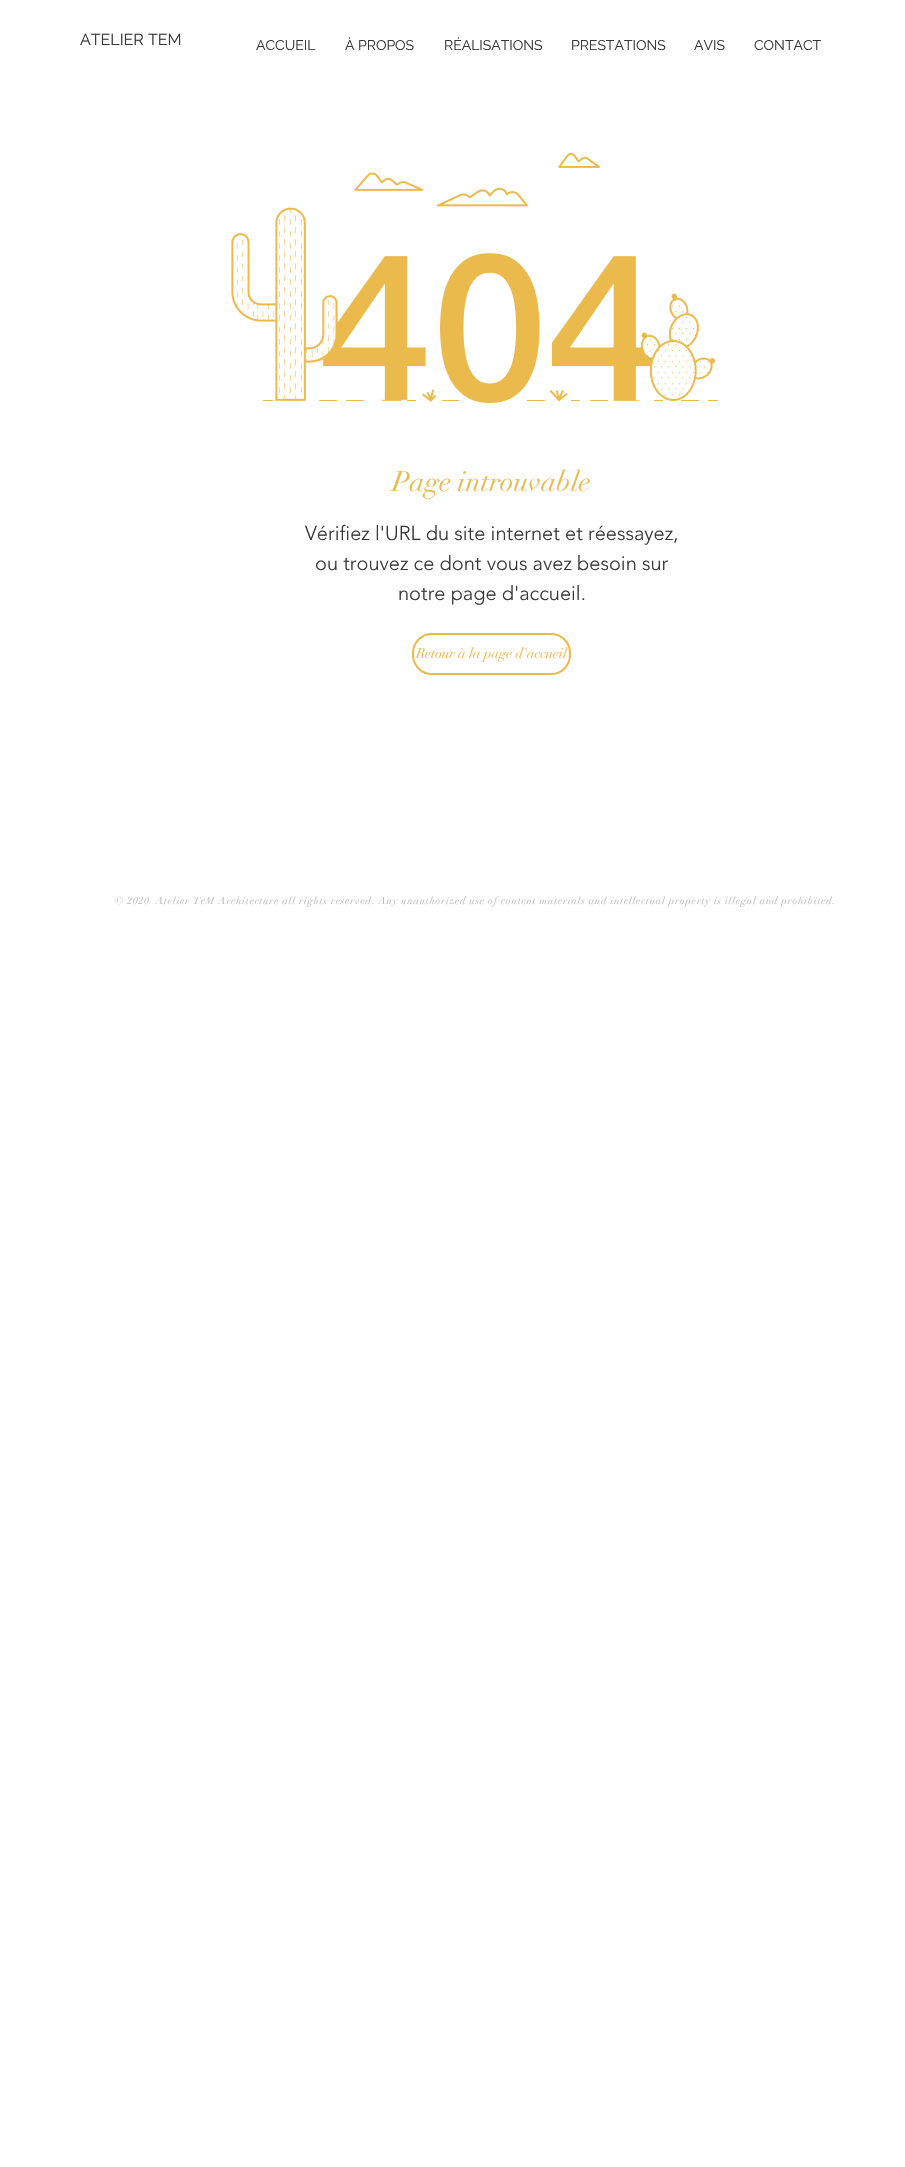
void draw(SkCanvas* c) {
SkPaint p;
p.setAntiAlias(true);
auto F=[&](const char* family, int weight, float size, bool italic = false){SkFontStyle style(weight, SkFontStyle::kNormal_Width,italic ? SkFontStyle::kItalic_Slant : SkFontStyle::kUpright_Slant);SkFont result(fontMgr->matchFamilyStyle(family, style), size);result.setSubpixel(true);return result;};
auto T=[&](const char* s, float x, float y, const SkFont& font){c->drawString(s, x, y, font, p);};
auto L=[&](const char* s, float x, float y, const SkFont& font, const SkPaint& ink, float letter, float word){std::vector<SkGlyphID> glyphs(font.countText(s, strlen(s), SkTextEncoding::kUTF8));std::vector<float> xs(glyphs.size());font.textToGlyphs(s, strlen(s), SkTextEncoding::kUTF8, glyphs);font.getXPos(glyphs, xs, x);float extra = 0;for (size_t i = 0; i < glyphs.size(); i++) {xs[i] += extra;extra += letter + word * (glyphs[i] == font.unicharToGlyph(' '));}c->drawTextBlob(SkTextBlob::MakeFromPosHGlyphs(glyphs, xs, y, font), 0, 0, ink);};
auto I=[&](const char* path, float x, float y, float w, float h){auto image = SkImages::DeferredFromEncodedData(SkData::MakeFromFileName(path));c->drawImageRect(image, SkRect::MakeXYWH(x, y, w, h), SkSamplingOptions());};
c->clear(0xffffffff);
auto f1 = F("Raleway",400,16);
p.setColor(0xff363636);
T("ATELIER TEM",80,45,f1);
auto f2 = F("Raleway",400,14);
T("ACCUEIL",256,50,f2);
T("À PROPOS",345,50,f2);
T("RÉALISATIONS",444,50,f2);
T("PRESTATIONS",571,50,f2);
T("AVIS",694,50,f2);
T("CONTACT",754,50,f2);
I("1.png",231,153,487,250);
auto f3 = F("didot",400,28);
p.setColor(0xffebba4d);
T("Page introuvable",392,491,f3);
auto f4 = F("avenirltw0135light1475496",300,20);
p.setColor(0xff363636);
T("Vérifiez l'URL du site internet et réessayez,",305,540,f4);
T("ou trouvez ce dont vous avez besoin sur",315,570,f4);
T("notre page d'accueil.",398,600,f4);
p.setStroke(true);
p.setStrokeWidth(2);
p.setColor(0xffebba4d);
c->drawRoundRect(SkRect::MakeXYWH(413,634,157,40),19,19,p);
auto f5 = F("didot",400,14);
p.setStroke(false);
T("Retour à la page d'accueil",416,658,f5);
auto f6 = F("didot",400,10);
p.setColor(0xffbababa);
L("© 2020",115,904,f6,p,.8,0);
L("Atelier TeM Architecture all rights reserved. Any unauthorized use of content materials and intellectual property is illegal and prohibited.",156,904,f6,p,.8,0);
}
